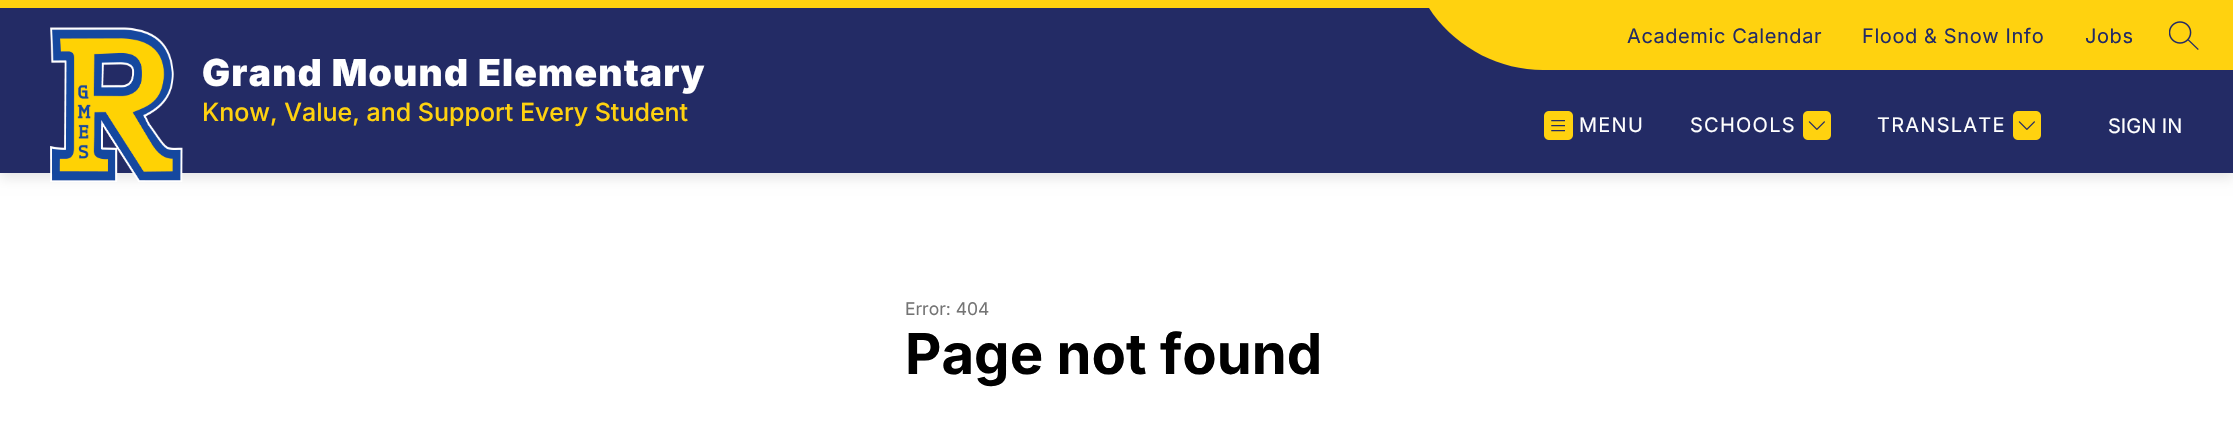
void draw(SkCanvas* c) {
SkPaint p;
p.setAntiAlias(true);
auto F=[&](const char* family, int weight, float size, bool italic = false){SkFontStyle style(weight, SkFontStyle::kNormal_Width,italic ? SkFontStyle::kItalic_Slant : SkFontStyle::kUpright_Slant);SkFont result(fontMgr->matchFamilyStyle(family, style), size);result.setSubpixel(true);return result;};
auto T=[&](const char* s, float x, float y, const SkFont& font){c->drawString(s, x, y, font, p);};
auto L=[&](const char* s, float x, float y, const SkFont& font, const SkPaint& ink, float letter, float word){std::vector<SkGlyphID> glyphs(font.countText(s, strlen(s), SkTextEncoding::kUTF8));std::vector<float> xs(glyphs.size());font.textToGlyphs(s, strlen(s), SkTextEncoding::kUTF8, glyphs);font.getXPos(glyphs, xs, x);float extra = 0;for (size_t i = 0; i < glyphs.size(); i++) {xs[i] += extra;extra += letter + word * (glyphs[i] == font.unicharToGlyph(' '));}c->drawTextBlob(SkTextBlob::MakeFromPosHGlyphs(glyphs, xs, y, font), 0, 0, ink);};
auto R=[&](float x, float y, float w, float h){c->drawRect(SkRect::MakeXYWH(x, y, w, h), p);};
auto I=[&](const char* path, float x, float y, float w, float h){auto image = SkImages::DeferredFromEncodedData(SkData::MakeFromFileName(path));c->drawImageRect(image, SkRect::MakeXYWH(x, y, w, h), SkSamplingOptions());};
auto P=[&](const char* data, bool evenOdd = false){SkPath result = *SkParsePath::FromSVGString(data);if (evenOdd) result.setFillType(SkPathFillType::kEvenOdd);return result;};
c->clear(0xffffffff);
p.setColor(0x1a000000);
p.setMaskFilter(SkMaskFilter::MakeBlur(kNormal_SkBlurStyle, 6));
c->drawRect(SkRect::MakeXYWH(0,5,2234,173),p);
p.setMaskFilter(nullptr);
p.setColor(0xff232b65);
R(0,8,2233,165);
p.setColor(0xffffd20f);
R(0,0,1429,8);
I("1.png",50,27,133,155);
auto f1 = F("Inter",900,37.25);
p.setColor(0xffffffff);
L("Grand Mound Elementary",202,86,f1,p,1.25,0);
auto f2 = F("Inter",500,25);
p.setColor(0xffffd20f);
T("Know, Value, and Support Every Student",202,121,f2);
R(1546,0,687,70);
c->drawPath(P("M1543 70h3v-70h-120c-1 0-1 1-1 2l8 12c26 35 67 56 110 56z"),p);
auto f3 = F("Inter",400,20);
p.setColor(0xff232b65);
L("Academic Calendar",1627,43,f3,p,.6,0);
L("Flood & Snow Info",1862,43,f3,p,.6,0);
L("Jobs",2085,43,f3,p,.6,0);
I("2.png",2169,21,30,29);
I("3.png",1544,111,29,29);
p.setColor(0xffffffff);
L("MENU",1579,132,f3,p,1.25,0);
L("SCHOOLS",1690,132,f3,p,1.25,0);
I("4.png",1803,111,28,29);
L("TRANSLATE",1877,132,f3,p,1.25,0);
I("4.png",2013,111,28,29);
T("SIGN IN",2108,133,f3);
auto f4 = F("Inter",400,17.5);
p.setColor(0xff747474);
T("Error: 404",905,315,f4);
auto f5 = F("Inter",700,56.25);
p.setColor(0xff000000);
T("Page not found",905,374,f5);
}
